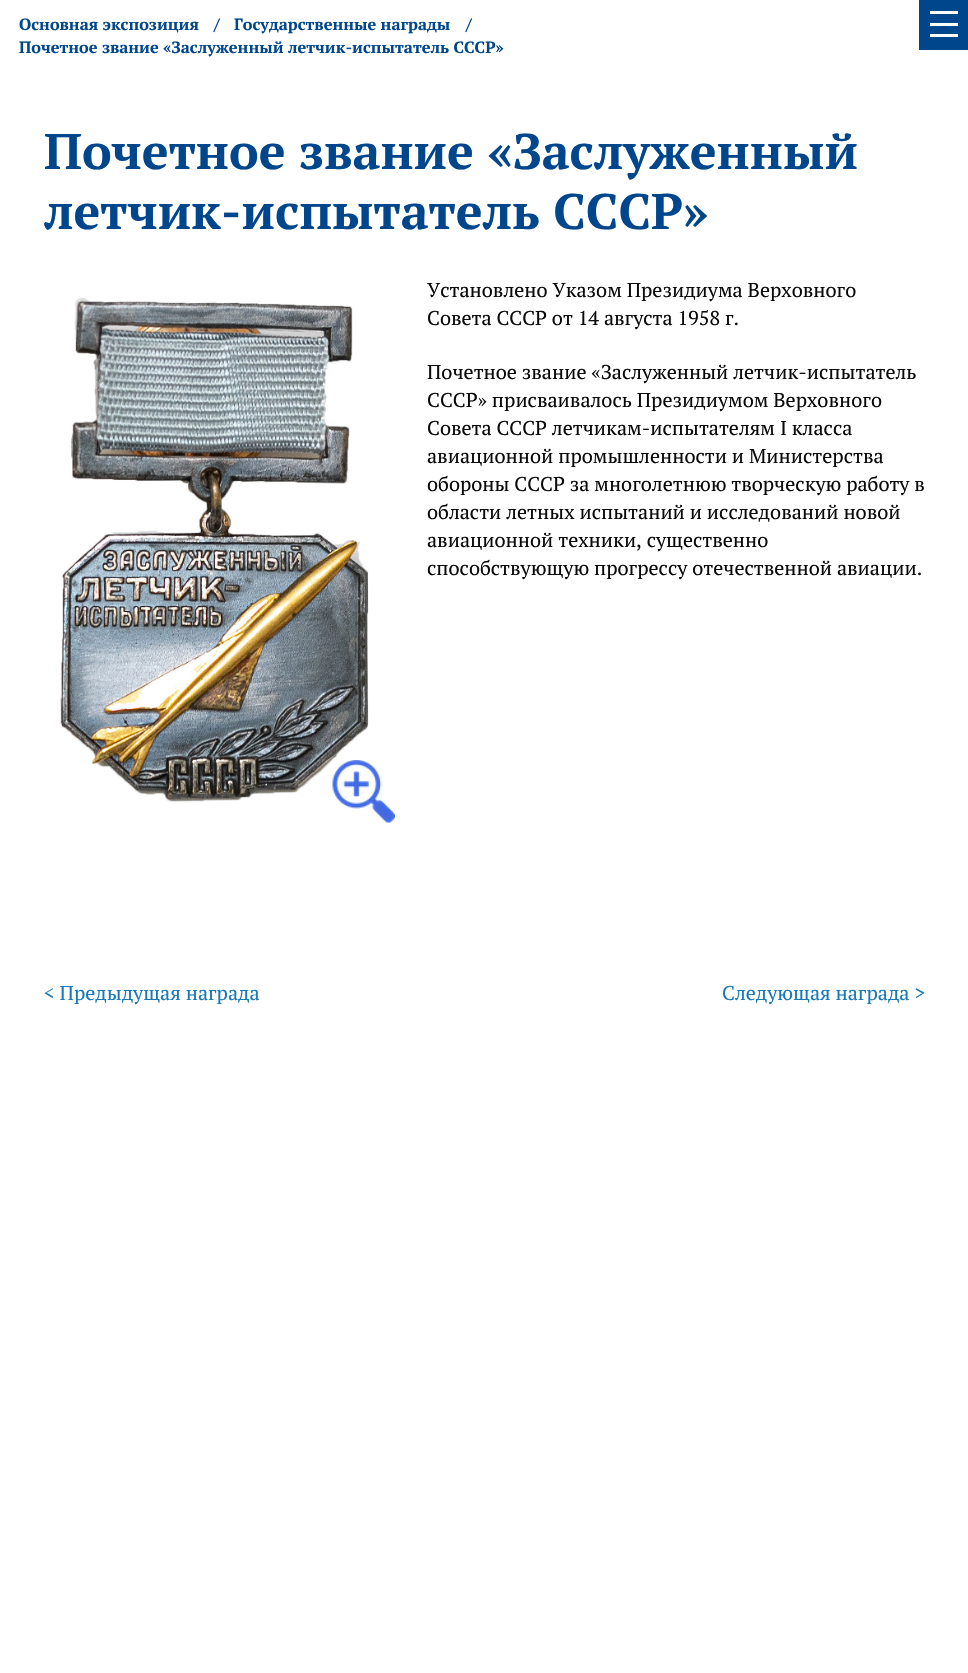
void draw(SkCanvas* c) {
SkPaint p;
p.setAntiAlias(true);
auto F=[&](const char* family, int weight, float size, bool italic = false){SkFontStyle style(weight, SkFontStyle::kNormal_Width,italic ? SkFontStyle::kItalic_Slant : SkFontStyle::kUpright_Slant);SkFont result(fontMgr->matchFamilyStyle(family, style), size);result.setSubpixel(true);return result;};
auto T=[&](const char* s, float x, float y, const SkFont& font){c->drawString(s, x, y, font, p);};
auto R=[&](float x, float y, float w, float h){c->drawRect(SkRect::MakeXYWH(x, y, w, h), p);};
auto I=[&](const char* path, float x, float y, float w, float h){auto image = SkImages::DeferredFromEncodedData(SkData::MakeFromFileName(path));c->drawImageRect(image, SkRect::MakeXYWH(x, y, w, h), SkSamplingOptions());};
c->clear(0xffffffff);
auto f1 = F("PT Serif",700,16.25);
p.setColor(0xff00468c);
T("Основная экспозиция",19,30,f1);
T("/",214,30,f1);
T("Государственные награды",234,30,f1);
T("/",466,30,f1);
T("Почетное звание «Заслуженный летчик-испытатель СССР»",19,53,f1);
auto f2 = F("PT Serif",700,50);
T("Почетное звание «Заслуженный",44,169,f2);
T("летчик-испытатель СССР»",44,229,f2);
I("1.png",60,297,309,505);
I("2.png",332,760,63,63);
auto f3 = F("PT Serif",400,20);
p.setColor(0xff0a0a0a);
T("Установлено Указом Президиума Верховного",427,297,f3);
T("Совета СССР от 14 августа 1958 г.",427,325,f3);
T("Почетное звание «Заслуженный летчик-испытатель",427,379,f3);
T("СССР» присваивалось Президиумом Верховного",427,407,f3);
T("Совета СССР летчикам-испытателям I класса",427,435,f3);
T("авиационной промышленности и Министерства",427,463,f3);
T("обороны СССР за многолетнюю творческую работу в",427,491,f3);
T("области летных испытаний и исследований новой",427,519,f3);
T("авиационной техники, существенно",427,547,f3);
T("способствующую прогрессу отечественной авиации.",427,575,f3);
p.setColor(0xff1779ba);
T("< Предыдущая награда",44,1000,f3);
T("Следующая награда >",722,1000,f3);
p.setColor(0xff00468c);
R(919,0,49,50);
p.setColor(0xfffefefe);
R(930,23,28,3);
R(930,11,28,3);
R(930,34,28,3);
}
